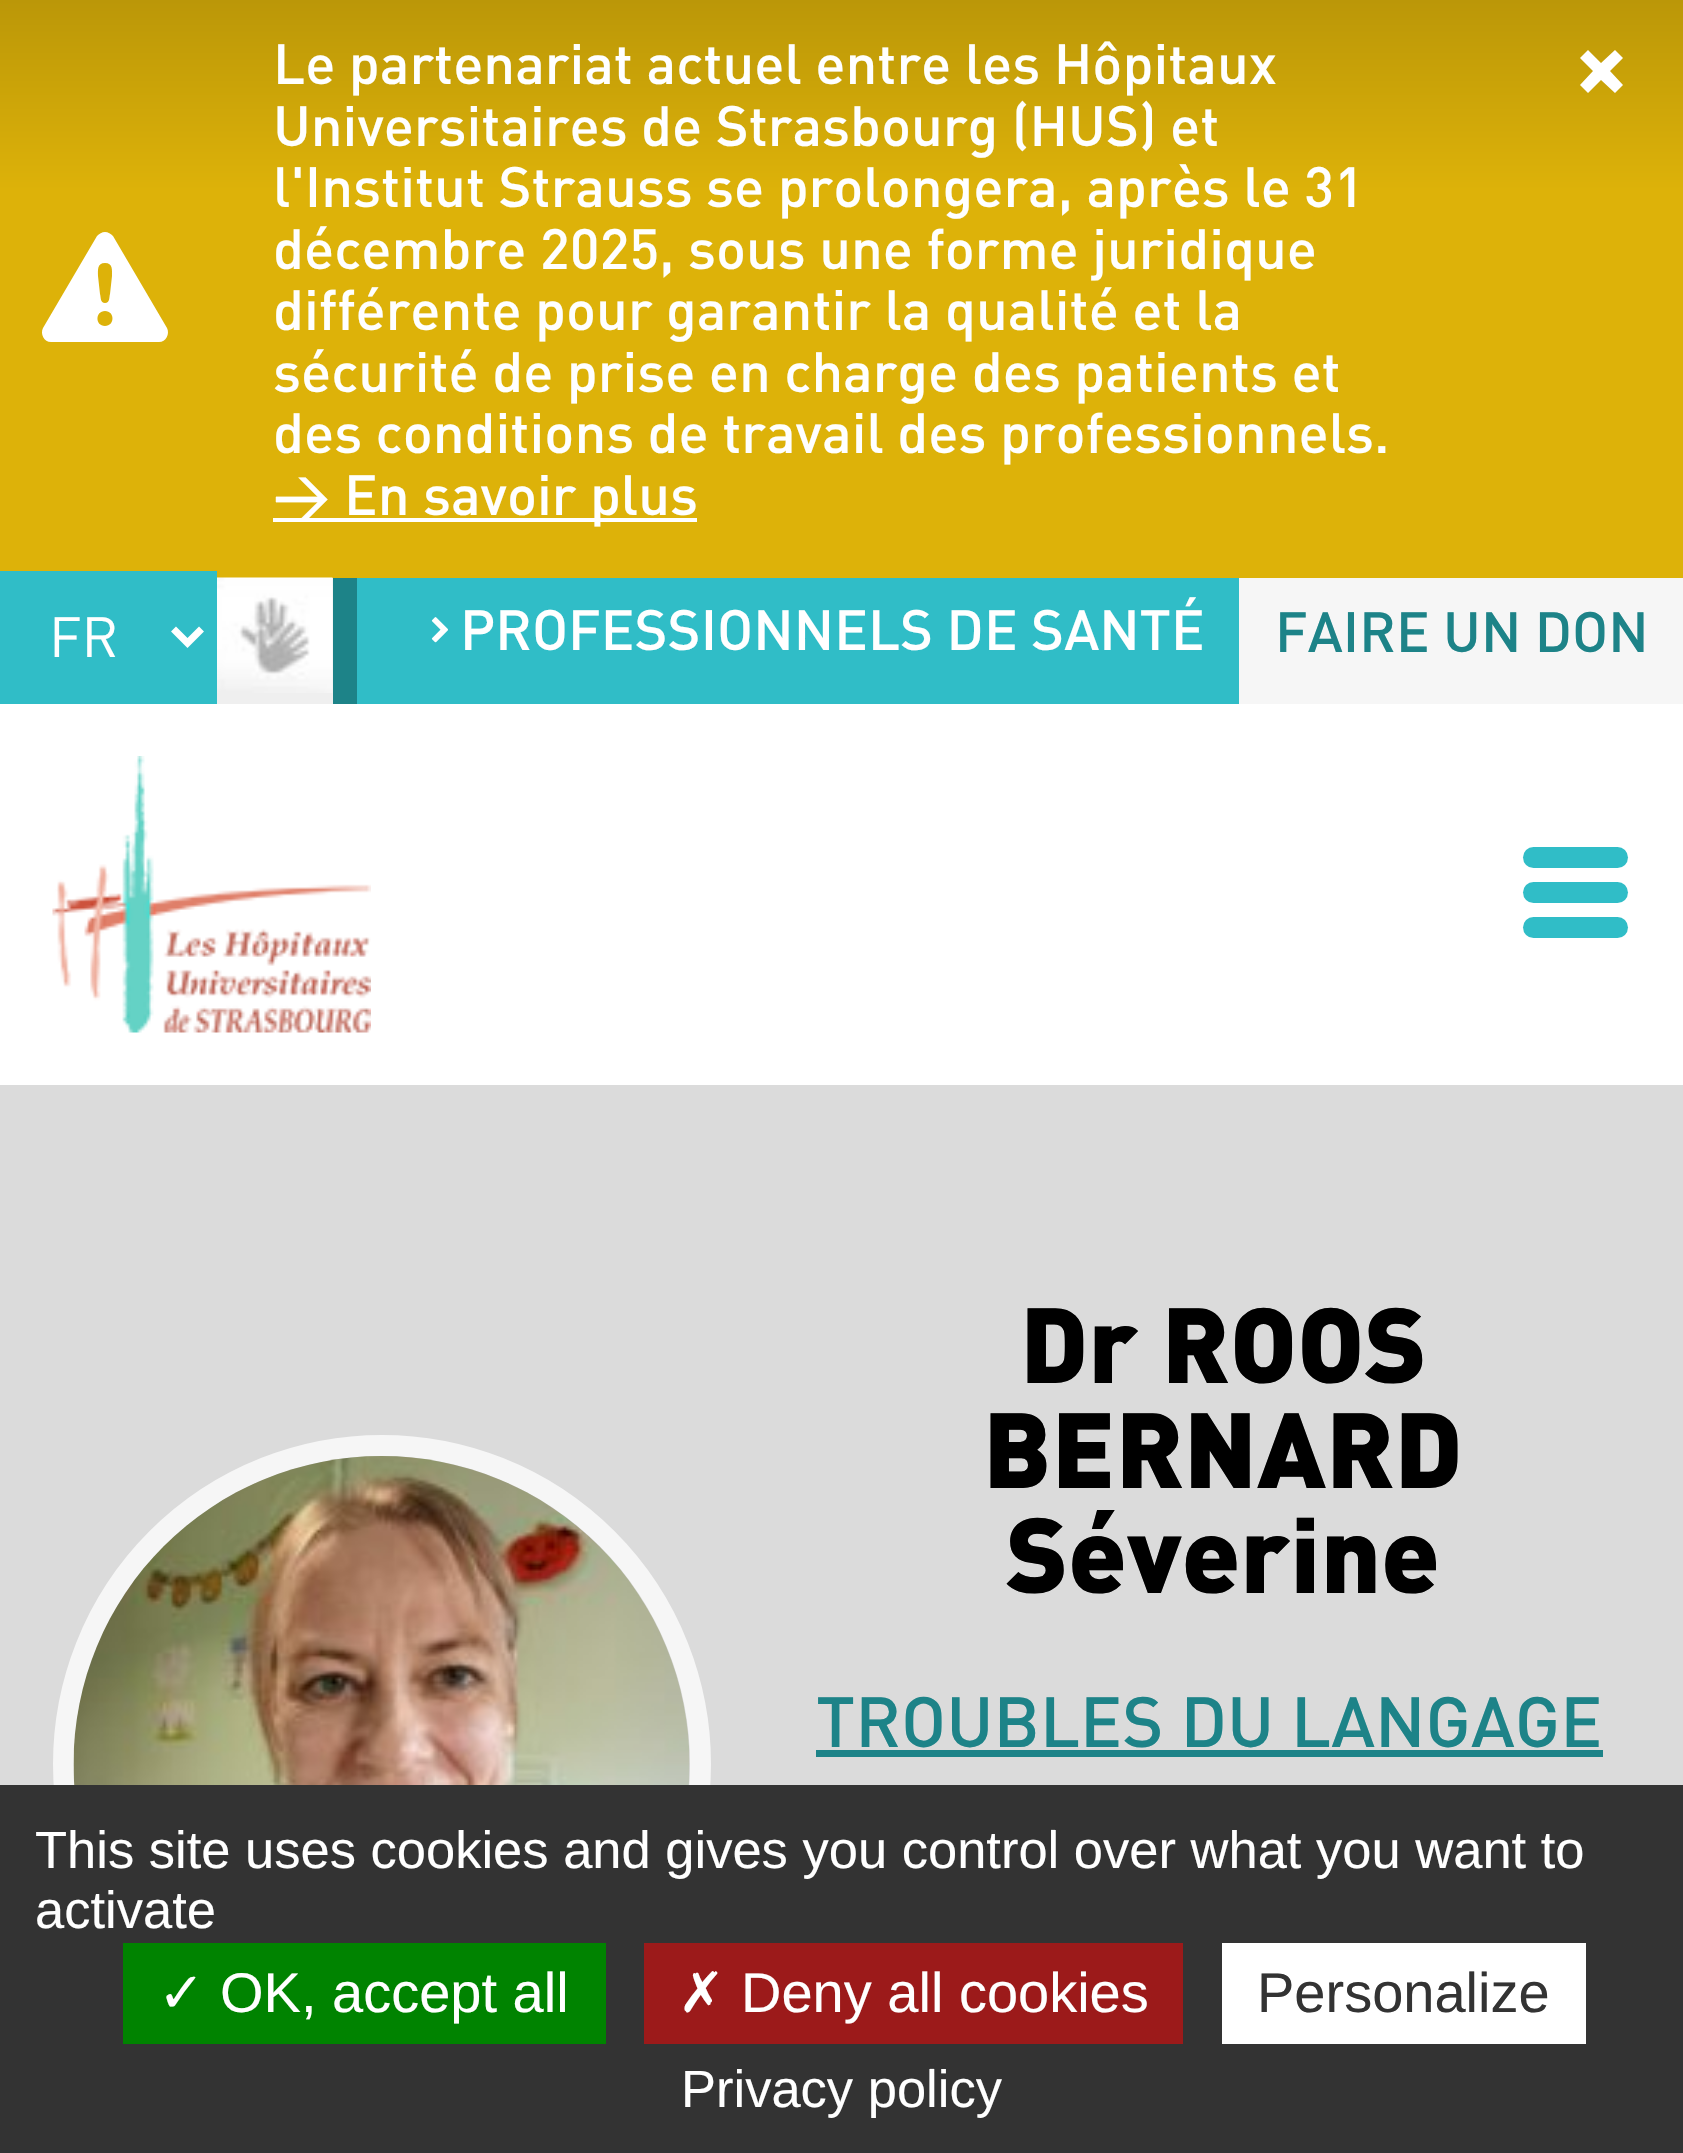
void draw(SkCanvas* c) {
SkPaint p;
p.setAntiAlias(true);
auto F=[&](const char* family, int weight, float size, bool italic = false){SkFontStyle style(weight, SkFontStyle::kNormal_Width,italic ? SkFontStyle::kItalic_Slant : SkFontStyle::kUpright_Slant);SkFont result(fontMgr->matchFamilyStyle(family, style), size);result.setSubpixel(true);return result;};
auto T=[&](const char* s, float x, float y, const SkFont& font){c->drawString(s, x, y, font, p);};
auto R=[&](float x, float y, float w, float h){c->drawRect(SkRect::MakeXYWH(x, y, w, h), p);};
auto Q=[&](float x, float y, float w, float h, float radius){c->drawRoundRect(SkRect::MakeXYWH(x, y, w, h), radius, radius, p);};
auto I=[&](const char* path, float x, float y, float w, float h){auto image = SkImages::DeferredFromEncodedData(SkData::MakeFromFileName(path));c->drawImageRect(image, SkRect::MakeXYWH(x, y, w, h), SkSamplingOptions());};
auto P=[&](const char* data, bool evenOdd = false){SkPath result = *SkParsePath::FromSVGString(data);if (evenOdd) result.setFillType(SkPathFillType::kEvenOdd);return result;};
c->clear(0xffffffff);
{
const SkColor colors[] = {0xffbb9708,0xffddb209};
const float stops[] = {0,.33};
const SkPoint ends[] = {{842,0}, {842,578}};
p.setShader(SkGradientShader::MakeLinear(ends, colors, stops, 2, SkTileMode::kClamp));
p.setAlpha(255);
}
R(0,0,1683,578);
auto f1 = F("DIN",500,56);
p.setShader(nullptr);
p.setColor(0xffffffff);
T("Le partenariat actuel entre les Hôpitaux",273,84,f1);
T("Universitaires de Strasbourg (HUS) et",273,146,f1);
T("l'Institut Strauss se prolongera, après le 31",273,207,f1);
T("décembre 2025, sous une forme juridique",273,269,f1);
T("différente pour garantir la qualité et la",273,330,f1);
T("sécurité de prise en charge des patients et",273,392,f1);
T("des conditions de travail des professionnels.",273,453,f1);
R(273,518,424,4);
T("> En savoir plus",273,515,f1);
c->drawPath(P("M1623 85l-8 8l-14-13l-13 13l-8-8l13-14l-13-13l8-8l13 13l14-13l8 8l-13 13z"),p);
c->drawPath(P("M113 236c-2-2-5-4-8-4c-3 0-6 2-8 4l-54 92c-3 6 1 14 8 14h108c7 0 11-8 8-14zm-8 27c8 0 7 7 7 13l-2 18c-1 3 0 9-5 9c-5 0-4-6-5-9l-2-18c0-6-1-13 7-13zm0 48c10 0 10 15 0 15c-10 0-10-15 0-15z"),p);
p.setColor(0xff1d8388);
R(333,578,24,126);
p.setColor(0xff30bdc7);
R(0,571,217,133);
p.setStroke(true);
p.setStrokeWidth(7);
p.setColor(0xffffffff);
c->drawPath(P("M173.5 629l14 14l14-14"),p);
auto f2 = F("DIN",400,56);
p.setStroke(false);
T("FR",49,657,f2);
p.setColor(0xffefefef);
R(217,578,116,126);
I("1.png",217,577,116,116);
p.setColor(0xff30bdc7);
R(357,578,882,126);
I("2.png",431,617,17,26);
p.setColor(0xffffffff);
T("PROFESSIONNELS DE SANTÉ",460,650,f1);
p.setColor(0xfff6f6f6);
R(1239,578,444,126);
p.setColor(0xff1d8388);
T("FAIRE UN DON",1275,652,f1);
I("3.png",52,756,319,277);
p.setColor(0xff30bdc7);
Q(1523,882,105,21,10.5);
Q(1523,847,105,21,10.5);
Q(1523,917,105,21,10.5);
p.setColor(0xffdbdbdb);
R(0,1085,1683,700);
p.setStroke(true);
p.setStrokeWidth(21);
p.setColor(0xfff6f6f6);
c->drawCircle(382,1764,318.5,p);
I("4.png",73,1456,617,329);
auto f3 = F("DIN",900,105);
p.setStroke(false);
p.setColor(0xff000000);
T("Dr ROOS",1020,1383,f3);
T("BERNARD",983,1488,f3);
T("Séverine",1006,1593,f3);
auto f4 = F("DIN",500,70);
p.setColor(0xff1d8388);
T("TROUBLES DU LANGAGE",816,1747,f4);
R(816,1750,787,7);
p.setColor(0xff333333);
R(0,1785,1683,368);
auto f5 = F("Liberation Sans",400,52.5);
p.setColor(0xffffffff);
T("This site uses cookies and gives you control over what you want to",35,1868,f5);
T("activate",35,1928,f5);
p.setColor(0xff008300);
R(123,1943,483,101);
auto f6 = F("DejaVu Sans",400,56);
p.setColor(0xffffffff);
T("✓",158,2012,f6);
auto f7 = F("Liberation Sans",400,56);
T("OK, accept all",220,2012,f7);
p.setColor(0xff9c1a1a);
R(644,1943,539,101);
p.setColor(0xffffffff);
T("✗",678,2012,f6);
T("Deny all cookies",741,2012,f7);
R(1222,1943,364,101);
p.setColor(0xff333333);
T("Personalize",1257,2012,f7);
p.setColor(0xffffffff);
T("Privacy policy",681,2107,f5);
}
